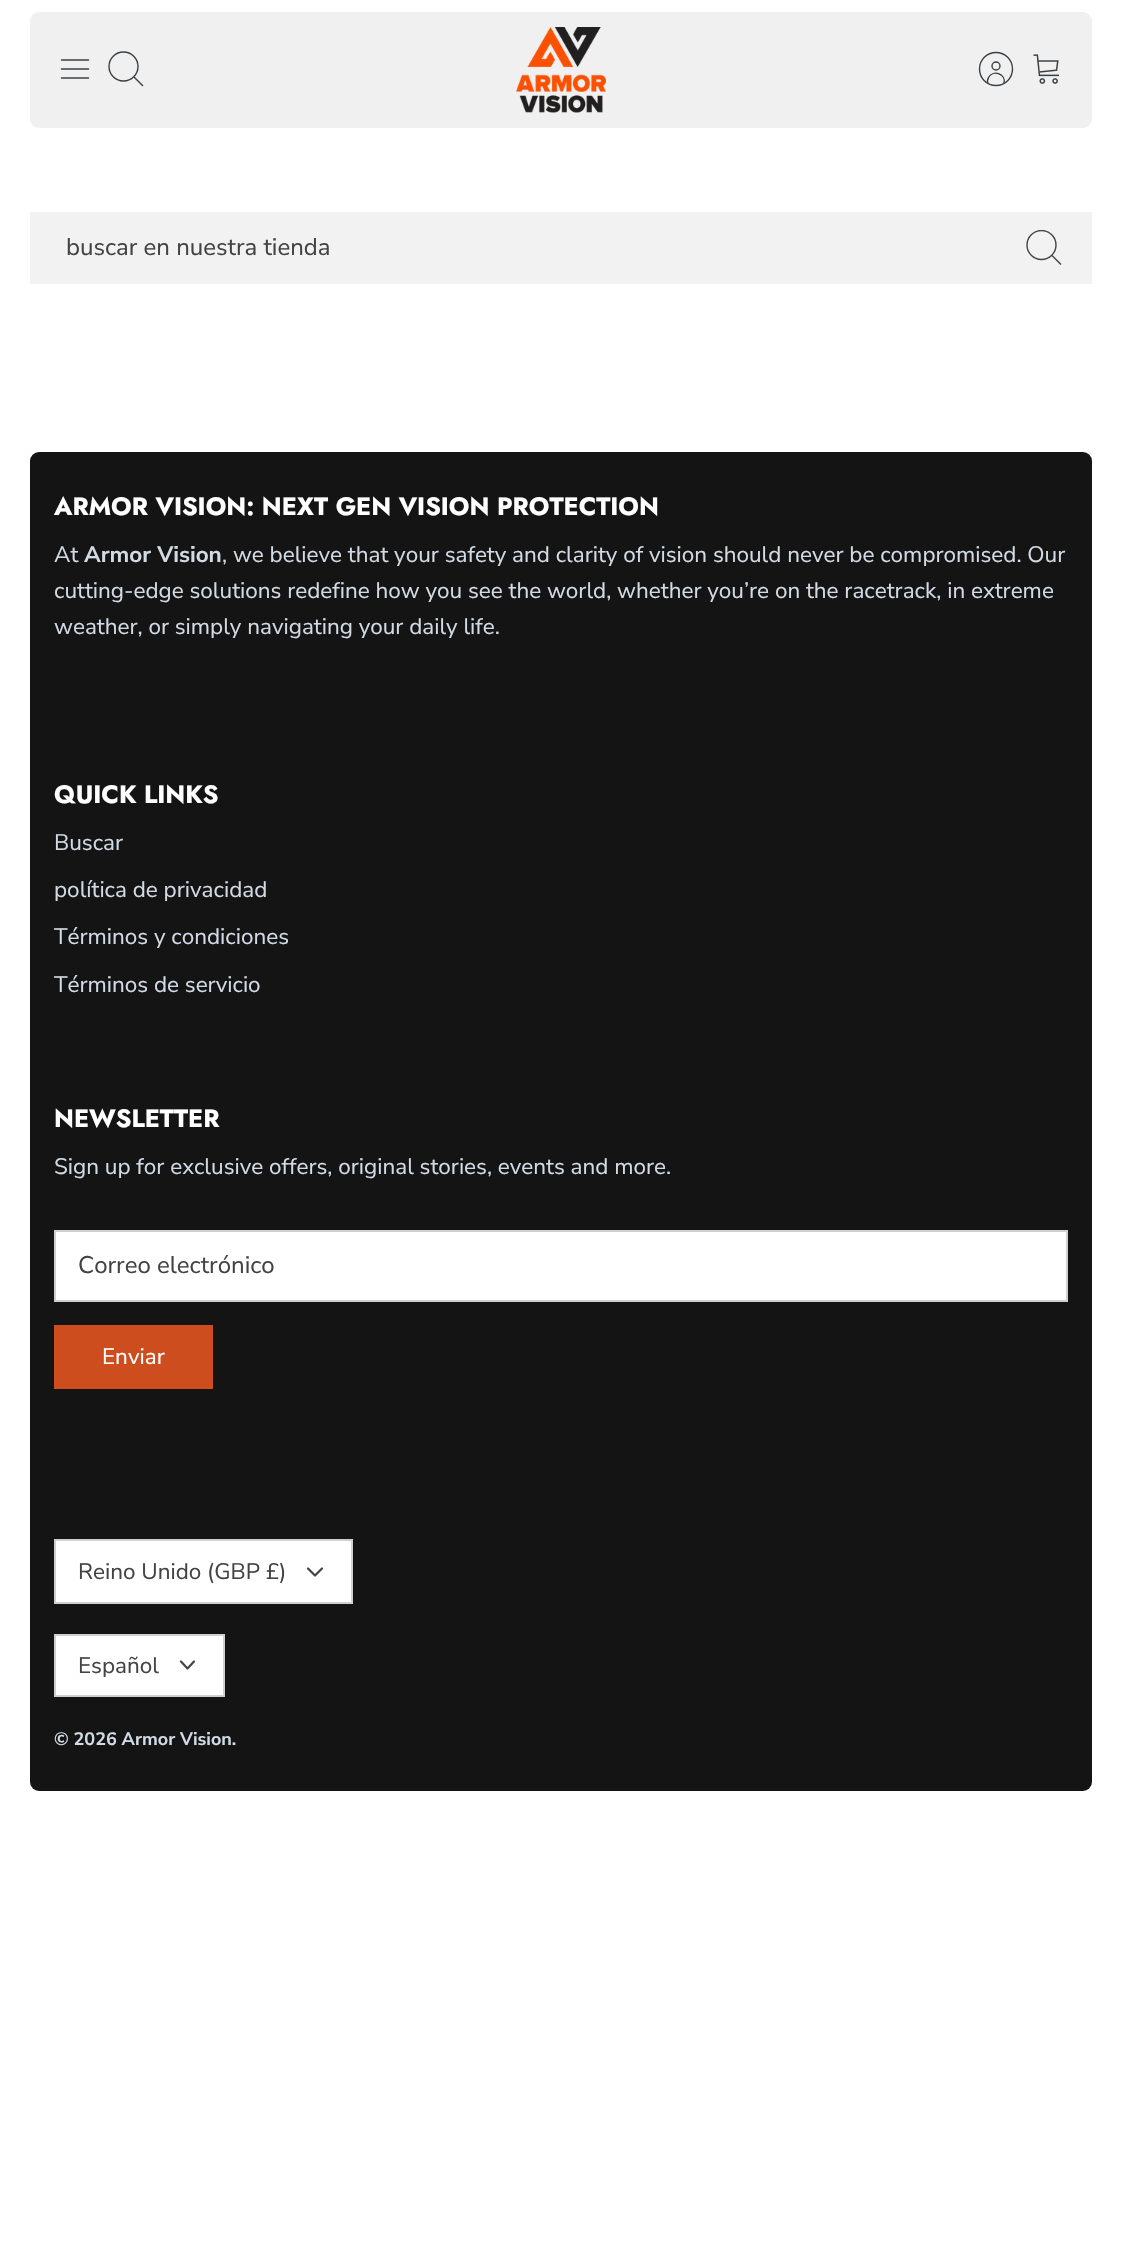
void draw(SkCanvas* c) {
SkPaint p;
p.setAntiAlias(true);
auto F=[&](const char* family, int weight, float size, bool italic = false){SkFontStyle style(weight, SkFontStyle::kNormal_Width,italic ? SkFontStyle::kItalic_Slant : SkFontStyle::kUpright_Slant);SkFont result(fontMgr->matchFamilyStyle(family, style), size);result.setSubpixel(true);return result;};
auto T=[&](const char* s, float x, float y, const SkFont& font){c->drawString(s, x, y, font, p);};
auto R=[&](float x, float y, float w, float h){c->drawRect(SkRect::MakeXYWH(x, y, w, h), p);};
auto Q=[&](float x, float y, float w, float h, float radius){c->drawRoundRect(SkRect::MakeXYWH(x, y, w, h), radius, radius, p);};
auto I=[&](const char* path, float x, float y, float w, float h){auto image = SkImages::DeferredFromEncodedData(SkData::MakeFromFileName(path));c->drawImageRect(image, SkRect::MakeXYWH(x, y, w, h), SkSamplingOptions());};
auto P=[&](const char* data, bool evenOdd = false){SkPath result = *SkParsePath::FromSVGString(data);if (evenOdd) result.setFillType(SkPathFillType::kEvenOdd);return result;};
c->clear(0xffffffff);
p.setColor(0xfff0f0f0);
Q(30,12,1062,116,9);
p.setStroke(true);
p.setStrokeWidth(1.5);
p.setStrokeCap(SkPaint::kRound_Cap);
p.setStrokeJoin(SkPaint::kRound_Join);
p.setColor(0xff3c4043);
c->drawPath(P("M61.5 69h27m-27-9h27m-27 18h27"),p);
p.setStrokeWidth(1.4);
p.setStrokeCap(SkPaint::kButt_Cap);
p.setStrokeJoin(SkPaint::kMiter_Join);
c->drawCircle(123.5,66.5,14.5,p);
p.setStrokeCap(SkPaint::kSquare_Cap);
c->drawPath(P("M134.5 77.5l8 8"),p);
I("1.png",516,27,90,86);
p.setStrokeCap(SkPaint::kButt_Cap);
c->drawPath(P("M1004 83.5c2.5-9-10.5-14.5-15.5-6c-1 2-1.5 4-.5 6"),p);
c->drawCircle(996,66,4,p);
c->drawCircle(996,69,16.5,p);
I("2.png",1033,54,26,30);
p.setStroke(false);
p.setColor(0xfff2f2f2);
R(30,212,1062,72);
auto f1 = F("Nunito Sans",400,24);
p.setColor(0xff434343);
T("buscar en nuestra tienda",66,255,f1);
c->save();
c->clipRect(SkRect::MakeXYWH(1026,230,36,36));
p.setStroke(true);
c->drawCircle(1041.5,245,14.5,p);
c->restore();
p.setStrokeCap(SkPaint::kSquare_Cap);
c->drawPath(P("M1052.5 256l8 8"),p);
p.setStroke(false);
p.setColor(0xff141414);
Q(30,452,1062,1339,9);
auto f2 = F("Jost",700,25.1);
p.setColor(0xffffffff);
T("ARMOR VISION: NEXT GEN VISION PROTECTION",54,515,f2);
auto f3 = F("Nunito Sans",400,22.5);
p.setColor(0xffd2dbe5);
T("At",54,562,f3);
auto f4 = F("Nunito Sans",700,22.5);
T("Armor Vision",84,562,f4);
T(", we believe that your safety and clarity of vision should never be compromised. Our",222,562,f3);
T("cutting-edge solutions redefine how you see the world, whether you’re on the racetrack, in extreme",54,598,f3);
T("weather, or simply navigating your daily life.",54,634,f3);
p.setColor(0xffffffff);
T("QUICK LINKS",54,803,f2);
p.setColor(0xffd2dbe5);
T("Buscar",54,850,f3);
T("política de privacidad",54,897,f3);
T("Términos y condiciones",54,944,f3);
T("Términos de servicio",54,992,f3);
p.setColor(0xffffffff);
T("NEWSLETTER",54,1127,f2);
p.setColor(0xffd2dbe5);
T("Sign up for exclusive offers, original stories, events and more.",54,1174,f3);
p.setColor(0xffffffff);
c->drawRect(SkRect::MakeXYWH(55,1231,1012,70),p);
p.setStroke(true);
p.setStrokeWidth(2);
p.setStrokeCap(SkPaint::kButt_Cap);
p.setColor(0xffd0d0d0);
c->drawRect(SkRect::MakeXYWH(55,1231,1012,70),p);
p.setStroke(false);
p.setColor(0xff434343);
T("Correo electrónico",78,1273,f1);
p.setColor(0xffcd4d1e);
R(54,1325,159,64);
p.setColor(0xffffffff);
T("Enviar",102,1364,f3);
c->drawRect(SkRect::MakeXYWH(55,1540,297,63),p);
p.setStroke(true);
p.setColor(0xffd0d0d0);
c->drawRect(SkRect::MakeXYWH(55,1540,297,63),p);
p.setStroke(false);
p.setColor(0xff434343);
T("Reino Unido (GBP £)",78,1579,f3);
p.setStroke(true);
p.setStrokeWidth(2.2);
p.setStrokeCap(SkPaint::kRound_Cap);
p.setStrokeJoin(SkPaint::kRound_Join);
c->drawPath(P("M308 1568.5l7 7l7-7"),p);
p.setStroke(false);
p.setColor(0xffffffff);
c->drawRect(SkRect::MakeXYWH(55,1635,169,61),p);
p.setStroke(true);
p.setStrokeWidth(2);
p.setStrokeCap(SkPaint::kButt_Cap);
p.setStrokeJoin(SkPaint::kMiter_Join);
p.setColor(0xffd0d0d0);
c->drawRect(SkRect::MakeXYWH(55,1635,169,61),p);
p.setStroke(false);
p.setColor(0xff434343);
T("Español",78,1673,f3);
p.setStroke(true);
p.setStrokeWidth(2.2);
p.setStrokeCap(SkPaint::kRound_Cap);
p.setStrokeJoin(SkPaint::kRound_Join);
c->drawPath(P("M181 1661.5l6.5 7l6.5-7"),p);
auto f5 = F("Nunito Sans",700,18);
p.setStroke(false);
p.setColor(0xffd2dbe5);
T("© 2026 Armor Vision.",54,1745,f5);
}
